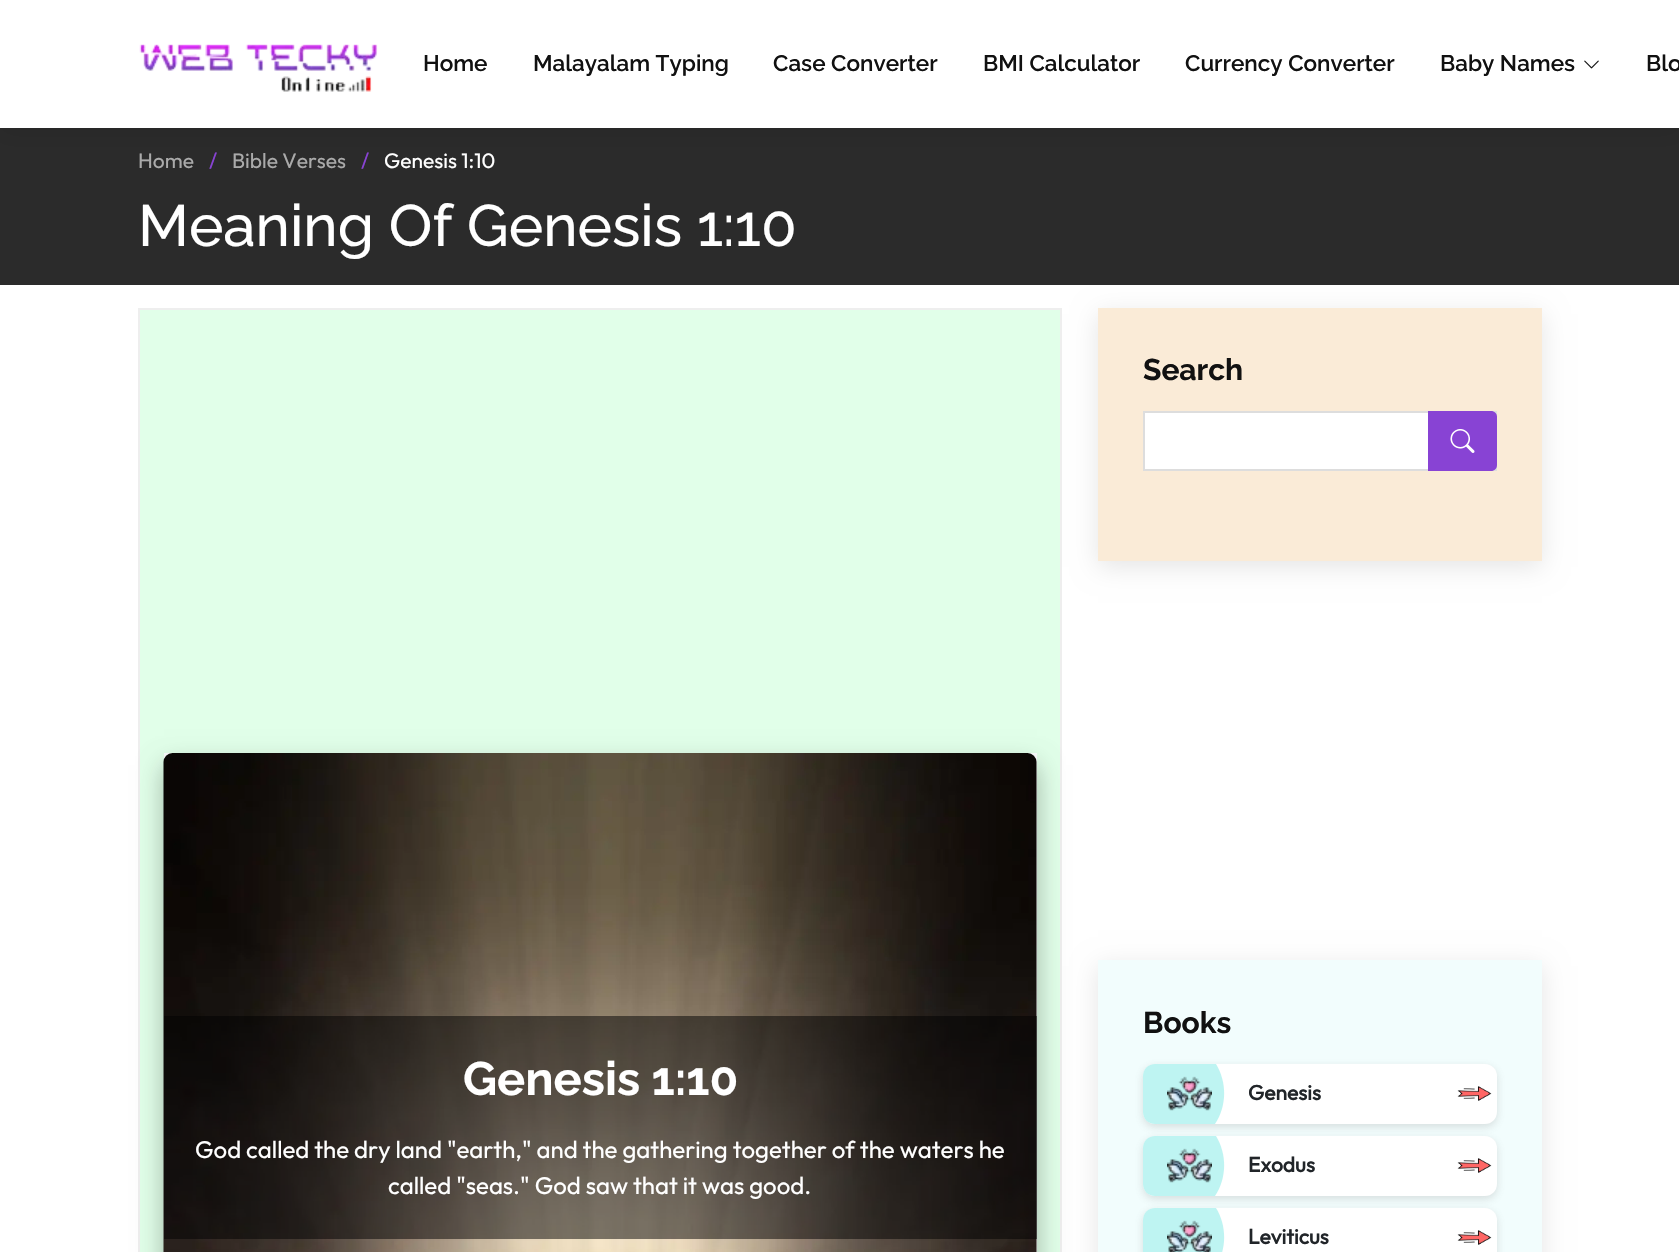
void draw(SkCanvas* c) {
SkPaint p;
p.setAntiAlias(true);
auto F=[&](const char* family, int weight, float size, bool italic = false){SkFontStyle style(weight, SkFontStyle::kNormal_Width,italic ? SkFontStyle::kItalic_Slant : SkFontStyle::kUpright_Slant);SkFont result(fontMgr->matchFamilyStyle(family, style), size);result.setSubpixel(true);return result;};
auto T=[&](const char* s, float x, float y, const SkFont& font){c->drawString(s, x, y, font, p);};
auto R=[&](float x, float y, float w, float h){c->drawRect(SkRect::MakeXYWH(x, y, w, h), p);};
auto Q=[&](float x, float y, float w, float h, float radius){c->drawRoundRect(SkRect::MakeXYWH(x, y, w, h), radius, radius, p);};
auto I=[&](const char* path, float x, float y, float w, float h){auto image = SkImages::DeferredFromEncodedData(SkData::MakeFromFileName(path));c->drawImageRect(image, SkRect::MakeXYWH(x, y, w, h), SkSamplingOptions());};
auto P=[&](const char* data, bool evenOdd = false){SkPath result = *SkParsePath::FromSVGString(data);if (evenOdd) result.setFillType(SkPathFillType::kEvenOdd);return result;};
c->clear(0xffffffff);
p.setColor(0xff2b2b2b);
R(0,128,1679,157);
p.setColor(0x1a000000);
p.setMaskFilter(SkMaskFilter::MakeBlur(kNormal_SkBlurStyle, 11));
c->drawRect(SkRect::MakeXYWH(0,3,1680,128),p);
p.setMaskFilter(nullptr);
p.setColor(0xffffffff);
R(0,0,1679,128);
I("1.png",139,44,239,48);
auto f1 = F("Raleway",600,22.5);
p.setColor(0xff111111);
T("Home",423,71,f1);
T("Malayalam Typing",533,71,f1);
T("Case Converter",773,71,f1);
T("BMI Calculator",983,71,f1);
T("Currency Converter",1185,71,f1);
T("Baby Names",1440,71,f1);
I("2.png",1584,60,15,9);
T("Blo",1646,71,f1);
auto f2 = F("Outfit",100,21);
p.setColor(0xffaaaaaa);
T("Home",138,168,f2);
p.setColor(0xff8843d4);
T("/",209,168,f2);
p.setColor(0xffaaaaaa);
T("Bible Verses",232,168,f2);
p.setColor(0xff8843d4);
T("/",361,168,f2);
p.setColor(0xffffffff);
T("Genesis 1:10",384,168,f2);
auto f3 = F("Raleway",500,58.25);
T("Meaning Of Genesis 1:10",138,246,f3);
p.setColor(0xffe1ffe9);
c->drawRect(SkRect::MakeXYWH(139,309,922,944),p);
p.setStroke(true);
p.setStrokeWidth(2);
p.setColor(0xffeeeeee);
c->drawRect(SkRect::MakeXYWH(139,309,922,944),p);
p.setStroke(false);
p.setColor(0x26000000);
p.setMaskFilter(SkMaskFilter::MakeBlur(kNormal_SkBlurStyle, 12));
c->drawRect(SkRect::MakeXYWH(164,765,873,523),p);
p.setMaskFilter(nullptr);
p.setColor(0xfff8f9fa);
R(164,753,873,499);
p.setColor(0x26000000);
p.setMaskFilter(SkMaskFilter::MakeBlur(kNormal_SkBlurStyle, 12));
c->drawRoundRect(SkRect::MakeXYWH(164,765,873,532),9,9,p);
p.setMaskFilter(nullptr);
I("3.png",163,753,874,499);
p.setColor(0x80000000);
R(164,1016,873,223);
auto f4 = F("Raleway",700,47);
p.setColor(0xffffffff);
T("Genesis 1:10",463,1095,f4);
auto f5 = F("Outfit",100,24);
T("God called the dry land \"earth,\" and the gathering together of the waters he",195,1158,f5);
T("called \"seas.\" God saw that it was good.",388,1194,f5);
p.setColor(0x1a000000);
p.setMaskFilter(SkMaskFilter::MakeBlur(kNormal_SkBlurStyle, 12));
c->drawRect(SkRect::MakeXYWH(1098,314,444,253),p);
p.setMaskFilter(nullptr);
p.setColor(0xfffaebd7);
R(1098,308,444,253);
auto f6 = F("Raleway",700,30);
p.setColor(0xff111111);
T("Search",1143,380,f6);
p.setColor(0xffffffff);
R(1145,413,283,56);
p.setStroke(true);
p.setColor(0xffdddddd);
c->drawRect(SkRect::MakeXYWH(1144,412,352,58),p);
p.setStroke(false);
p.setColor(0xff8843d4);
c->drawPath(P("M1428 411h63c3.5 0 6 2.5 6 6v48c0 3.5-2.5 6-6 6h-63z"),p);
I("4.png",1450,429,25,24);
p.setColor(0x1a000000);
p.setMaskFilter(SkMaskFilter::MakeBlur(kNormal_SkBlurStyle, 12));
c->drawRect(SkRect::MakeXYWH(1098,966,444,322),p);
p.setMaskFilter(nullptr);
p.setColor(0xfff2fdfd);
R(1098,960,444,292);
p.setColor(0xff111111);
T("Books",1143,1033,f6);
p.setColor(0x33666666);
p.setMaskFilter(SkMaskFilter::MakeBlur(kNormal_SkBlurStyle, 4.5));
c->drawRoundRect(SkRect::MakeXYWH(1143,1067,354,60),12,12,p);
p.setMaskFilter(nullptr);
p.setColor(0xffffffff);
Q(1143,1064,354,60,12);
p.setColor(0xffbef4f2);
c->drawPath(P("M1155 1064h61c11 18 11 42-1 60h-60c-7 0-12-5-12-12v-36c0-7 5-12 12-12z"),p);
I("5.png",1167,1076,45,35);
auto f7 = F("Outfit",700,21);
p.setColor(0xff212529);
T("Genesis",1248,1100,f7);
I("6.png",1457,1086,35,15);
p.setColor(0x33666666);
p.setMaskFilter(SkMaskFilter::MakeBlur(kNormal_SkBlurStyle, 4.5));
c->drawRoundRect(SkRect::MakeXYWH(1143,1139,354,60),12,12,p);
p.setMaskFilter(nullptr);
p.setColor(0xffffffff);
Q(1143,1136,354,60,12);
p.setColor(0xffbef4f2);
c->drawPath(P("M1155 1136h61c11 18 11 42-1 60h-60c-7 0-12-5-12-12v-36c0-7 5-12 12-12z"),p);
I("5.png",1167,1148,45,35);
p.setColor(0xff212529);
T("Exodus",1248,1172,f7);
I("6.png",1457,1158,35,15);
p.setColor(0x33666666);
p.setMaskFilter(SkMaskFilter::MakeBlur(kNormal_SkBlurStyle, 4.5));
c->drawRoundRect(SkRect::MakeXYWH(1143,1211,354,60),12,12,p);
p.setMaskFilter(nullptr);
p.setColor(0xffffffff);
Q(1143,1208,354,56,12);
p.setColor(0xffbef4f2);
c->drawPath(P("M1155 1208h61c11 18 11 42-1 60h-60c-7 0-12-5-12-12v-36c0-7 5-12 12-12z"),p);
I("7.png",1167,1220,45,32);
p.setColor(0xff212529);
T("Leviticus",1248,1244,f7);
I("6.png",1457,1230,35,15);
}
